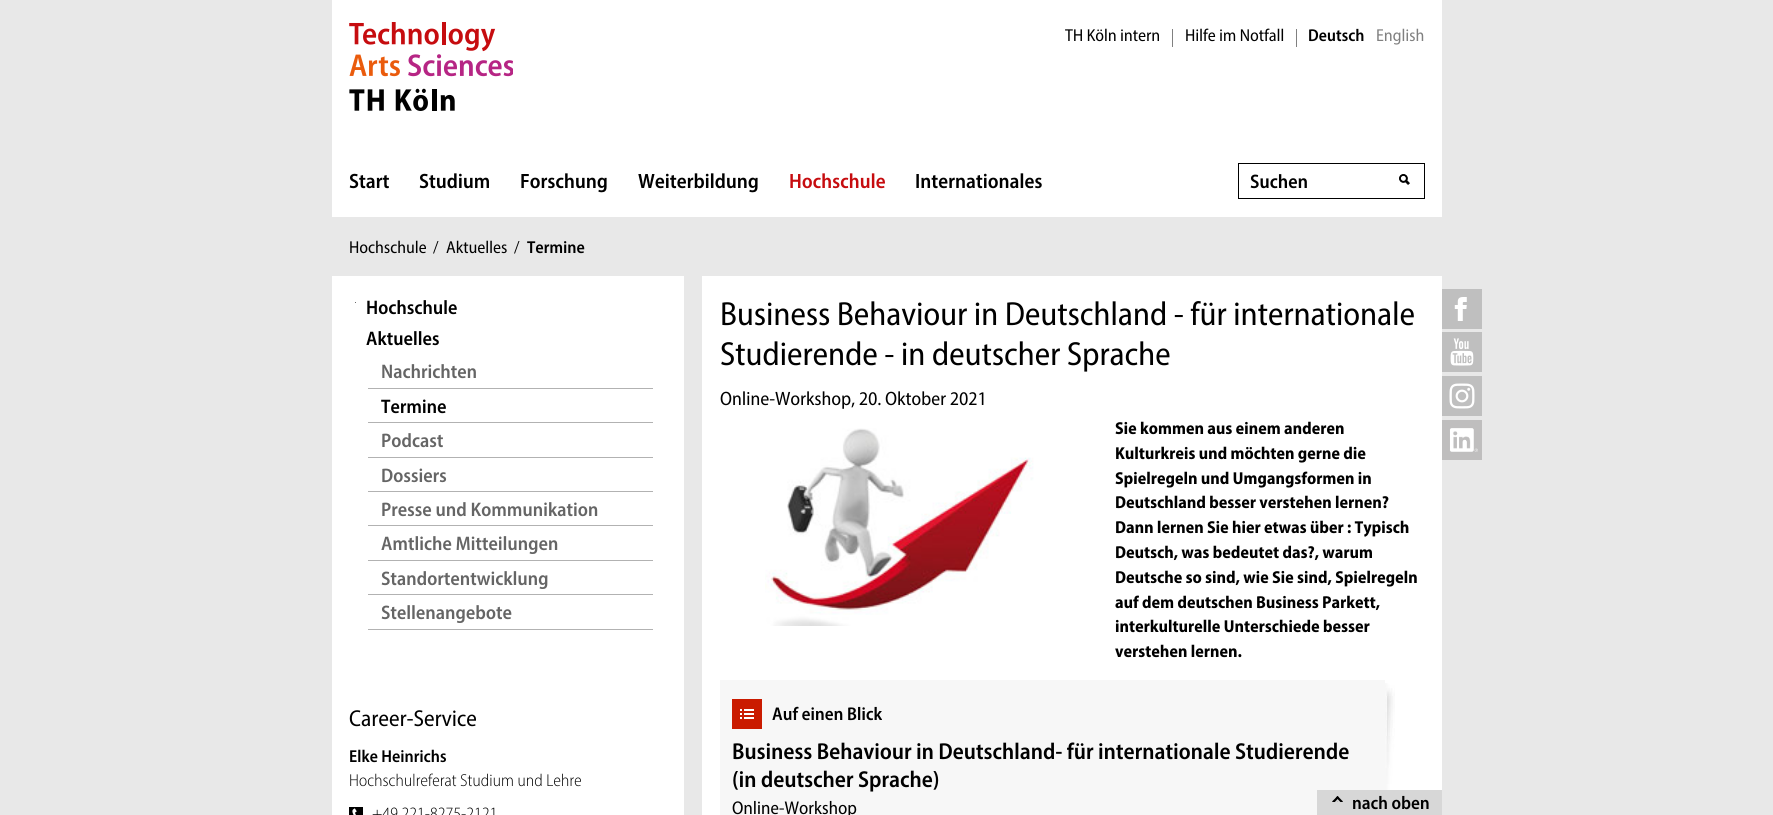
void draw(SkCanvas* c) {
SkPaint p;
p.setAntiAlias(true);
auto R=[&](float x, float y, float w, float h){c->drawRect(SkRect::MakeXYWH(x, y, w, h), p);};
auto I=[&](const char* path, float x, float y, float w, float h){auto image = SkImages::DeferredFromEncodedData(SkData::MakeFromFileName(path));c->drawImageRect(image, SkRect::MakeXYWH(x, y, w, h), SkSamplingOptions());};
auto P=[&](const char* data, bool evenOdd = false){SkPath result = *SkParsePath::FromSVGString(data);if (evenOdd) result.setFillType(SkPathFillType::kEvenOdd);return result;};
c->clear(0xffe8e8e8);
p.setColor(0xffffffff);
R(332,0,1110,217);
I("1.png",349,22,164,89);
I("2.png",1065,28,94,14);
p.setColor(0xff808080);
R(1172,29,1,18);
I("3.png",1186,28,98,14);
R(1296,29,1,18);
I("4.png",1309,28,55,14);
I("5.png",1377,28,47,17);
I("6.png",349,173,40,16);
I("7.png",419,173,70,16);
I("8.png",521,173,86,20);
I("9.png",638,173,120,20);
I("10.png",790,173,95,16);
I("11.png",916,173,126,16);
p.setStroke(true);
p.setStrokeWidth(1);
p.setColor(0xff000000);
c->drawRect(SkRect::MakeXYWH(1238.5,163.5,186,35),p);
I("12.png",1250,174,57,15);
I("13.png",1399,174,11,11);
I("14.png",350,240,76,14);
p.setStroke(false);
c->drawPath(P("M433 253.5l4.5-12.5h1l-4.5 12.5z"),p);
I("15.png",446,240,61,14);
c->drawPath(P("M514 253.5l4.5-12.5h1l-4.5 12.5z"),p);
I("16.png",527,241,58,13);
p.setColor(0xffffffff);
R(332,276,352,539);
p.setColor(0xff6b6b6b);
R(355,302,1,1);
I("17.png",367,300,90,15);
I("18.png",366,331,73,15);
p.setColor(0xffb2b2b2);
R(368,388,285,1);
I("19.png",382,364,94,15);
R(368,422,285,1);
I("20.png",381,399,65,15);
R(368,457,285,1);
I("21.png",382,433,61,15);
R(368,491,285,1);
I("22.png",382,468,65,15);
R(368,525,285,1);
I("23.png",382,502,216,15);
R(368,560,285,1);
I("24.png",381,536,177,18);
R(368,594,285,1);
I("25.png",381,571,167,18);
R(368,629,285,1);
I("26.png",381,605,131,18);
I("27.png",349,710,127,17);
I("28.png",350,749,96,14);
I("29.png",350,773,231,14);
I("30.png",349,807,14,8);
I("31.png",372,807,123,8);
p.setColor(0xffffffff);
R(702,276,740,539);
I("32.png",722,301,692,25);
I("33.png",721,341,449,31);
I("34.png",720,391,264,18);
I("35.png",765,428,269,198);
I("36.png",1115,421,229,14);
I("37.png",1116,446,250,17);
I("38.png",1115,471,256,17);
I("39.png",1116,495,273,14);
I("40.png",1116,520,293,17);
I("41.png",1116,545,256,16);
I("42.png",1116,570,301,17);
I("43.png",1115,595,265,16);
I("44.png",1115,619,255,14);
I("45.png",1115,644,127,14);
I("46.png",1385,683,10,107);
p.setColor(0xfff7f7f7);
R(720,680,665,135);
I("47.png",732,699,30,30);
I("48.png",772,706,110,15);
I("49.png",733,742,616,18);
I("50.png",733,770,206,22);
I("51.png",732,800,125,15);
I("52.png",1442,289,40,40);
I("53.png",1442,332,40,40);
I("54.png",1442,376,40,40);
I("55.png",1442,420,40,40);
p.setColor(0xffd7d7d7);
R(1317,790,125,25);
I("56.png",1332,796,11,6);
I("57.png",1353,795,76,15);
}
